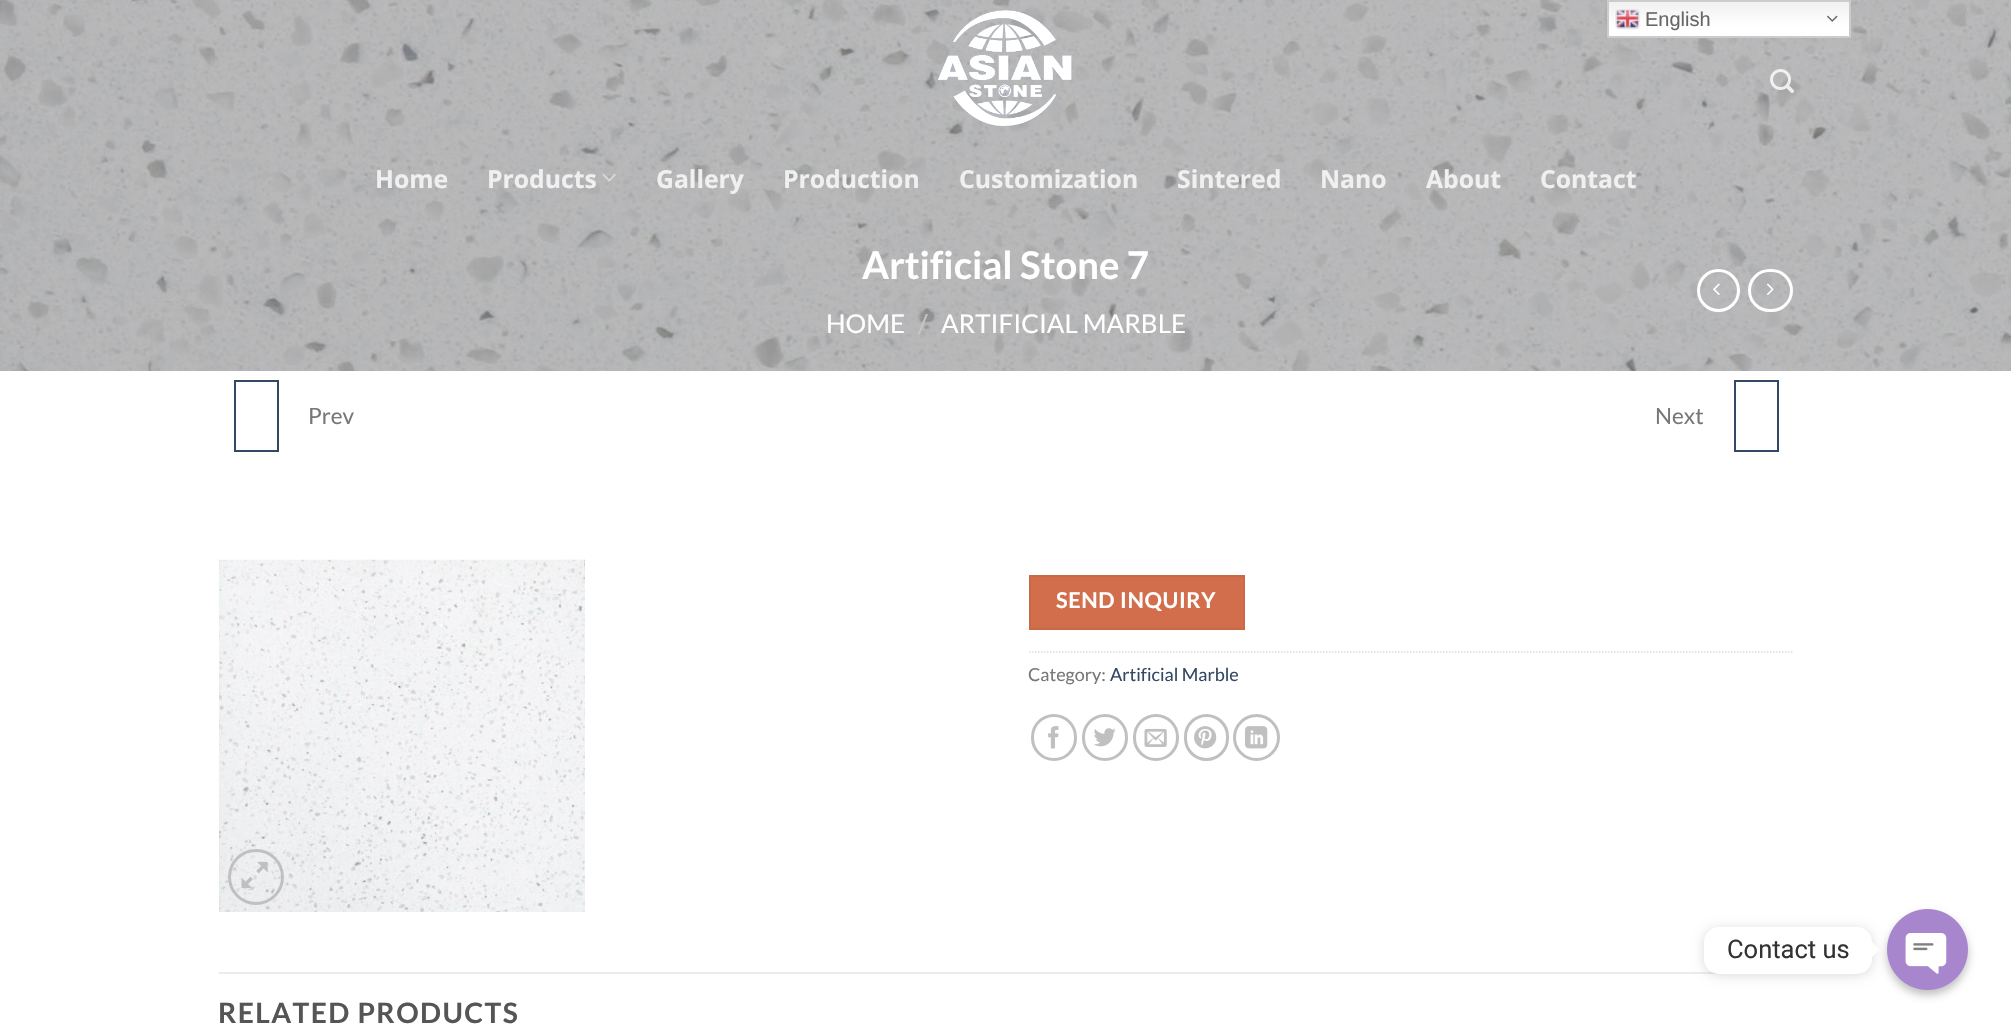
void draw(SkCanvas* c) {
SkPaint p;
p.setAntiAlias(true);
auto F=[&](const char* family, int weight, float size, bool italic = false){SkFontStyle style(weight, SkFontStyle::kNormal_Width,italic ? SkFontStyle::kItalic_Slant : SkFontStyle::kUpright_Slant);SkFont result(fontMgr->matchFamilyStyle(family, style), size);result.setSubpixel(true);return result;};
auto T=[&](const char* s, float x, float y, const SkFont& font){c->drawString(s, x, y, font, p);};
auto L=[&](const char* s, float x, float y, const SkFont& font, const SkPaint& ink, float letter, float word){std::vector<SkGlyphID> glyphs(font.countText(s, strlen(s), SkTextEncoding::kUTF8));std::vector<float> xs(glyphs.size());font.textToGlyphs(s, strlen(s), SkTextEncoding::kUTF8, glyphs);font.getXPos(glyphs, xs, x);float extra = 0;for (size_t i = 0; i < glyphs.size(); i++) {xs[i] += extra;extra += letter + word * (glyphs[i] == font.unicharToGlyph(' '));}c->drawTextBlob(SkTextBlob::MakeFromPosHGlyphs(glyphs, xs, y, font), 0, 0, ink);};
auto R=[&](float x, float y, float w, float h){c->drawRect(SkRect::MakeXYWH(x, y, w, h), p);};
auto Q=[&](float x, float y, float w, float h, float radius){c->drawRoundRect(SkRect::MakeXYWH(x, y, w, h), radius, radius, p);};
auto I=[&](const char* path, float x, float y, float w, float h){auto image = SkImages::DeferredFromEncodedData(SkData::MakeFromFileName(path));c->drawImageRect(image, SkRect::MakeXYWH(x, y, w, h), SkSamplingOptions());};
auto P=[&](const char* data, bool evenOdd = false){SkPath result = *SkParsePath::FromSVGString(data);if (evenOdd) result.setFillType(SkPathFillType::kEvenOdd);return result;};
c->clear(0xffffffff);
I("6.png",0,0,2011,371);
{
const SkColor colors[] = {0xffefefef,0xffffffff};
const float stops[] = {0,.7};
const SkPoint ends[] = {{1729,0}, {1729,38}};
p.setShader(SkGradientShader::MakeLinear(ends, colors, stops, 2, SkTileMode::kClamp));
p.setAlpha(255);
}
R(1609,2,240,34);
p.setStroke(true);
p.setStrokeWidth(2);
p.setShader(nullptr);
p.setColor(0xffcccccc);
c->drawRect(SkRect::MakeXYWH(1608,1,242,36),p);
I("1.png",1615,9,25,21);
auto f1 = F("Liberation Sans",400,20);
p.setStroke(false);
p.setColor(0xff666666);
T("English",1645,26,f1);
I("2.png",1827,15,11,7);
I("3.png",937,10,135,116);
I("4.png",1770,69,24,24);
auto f2 = F("Open Sans",700,24.75);
p.setColor(0xfff0f0f0);
T("Home",375,188,f2);
T("Products",487,188,f2);
I("5.png",602,173,14,9);
T("Gallery",656,188,f2);
T("Production",783,188,f2);
T("Customization",959,188,f2);
T("Sintered",1177,188,f2);
T("Nano",1320,188,f2);
T("About",1426,188,f2);
T("Contact",1540,188,f2);
auto f3 = F("Lato",700,38.25);
p.setColor(0xffffffff);
T("Artificial Stone 7",862,279,f3);
auto f4 = F("Lato",400,25.9);
T("HOME",826,333,f4);
p.setColor(0xffc6c7c6);
T("/",918,333,f4);
p.setColor(0xffffffff);
T("ARTIFICIAL MARBLE",941,333,f4);
p.setStroke(true);
p.setStrokeWidth(3);
c->drawCircle(1718.5,290.5,20,p);
I("7.png",1713,283,7,12);
c->drawRoundRect(SkRect::MakeXYWH(1749.5,270.5,42,40),20,20,p);
I("8.png",1766,283,8,12);
p.setStrokeWidth(2);
p.setColor(0xff334862);
c->drawRect(SkRect::MakeXYWH(235,381,43,70),p);
auto f5 = F("Lato",400,22.5);
p.setStroke(false);
p.setColor(0xff777777);
T("Prev",308,424,f5);
T("Next",1655,424,f5);
p.setStroke(true);
p.setColor(0xff334862);
c->drawRect(SkRect::MakeXYWH(1735,381,43,70),p);
I("9.png",219,559,366,353);
p.setStrokeWidth(3);
p.setColor(0xffc0c0c0);
c->drawCircle(256,877,26.5,p);
I("10.png",241,862,27,27);
p.setStroke(false);
p.setColor(0xffd26e4b);
c->drawRect(SkRect::MakeXYWH(1030,576,214,53),p);
p.setStroke(true);
p.setStrokeWidth(2);
p.setColor(0xffc86947);
c->drawRect(SkRect::MakeXYWH(1030,576,214,53),p);
auto f6 = F("Lato",700,21.75);
p.setStroke(false);
p.setColor(0xffffffff);
L("SEND INQUIRY",1056,608,f6,p,.6,0);
p.setStroke(true);
p.setStrokeWidth(1.5);
p.setColor(0xffdddddd);
p.setPathEffect(SkDashPathEffect::Make({{1.5f,1.5f}}, 0));
c->drawPath(P("M1029 652h765"),p);
p.setPathEffect(nullptr);
auto f7 = F("Lato",400,18);
p.setStroke(false);
p.setColor(0xff777777);
T("Category:",1028,681,f7);
p.setColor(0xff334862);
T("Artificial Marble",1110,681,f7);
p.setStroke(true);
p.setStrokeWidth(3);
p.setColor(0xffc0c0c0);
c->drawRoundRect(SkRect::MakeXYWH(1032.5,715.5,43,44),21.5,21.5,p);
I("11.png",1048,726,11,23);
c->drawRoundRect(SkRect::MakeXYWH(1083.5,715.5,43,44),21.5,21.5,p);
I("12.png",1094,728,22,19);
c->drawRoundRect(SkRect::MakeXYWH(1134.5,715.5,43,44),21.5,21.5,p);
I("13.png",1144,728,23,19);
c->drawRoundRect(SkRect::MakeXYWH(1185.5,715.5,42,44),21,21,p);
I("14.png",1194,726,23,23);
c->drawCircle(1256.5,737.5,22,p);
I("15.png",1245,726,23,23);
p.setStroke(false);
p.setColor(0xffececec);
R(219,972,1500,2);
auto f8 = F("Lato",700,28.1);
p.setColor(0xff555555);
L("RELATED PRODUCTS",218,1023,f8,p,1.4,0);
p.setColor(0x26000000);
p.setMaskFilter(SkMaskFilter::MakeBlur(kNormal_SkBlurStyle, 6));
c->drawRoundRect(SkRect::MakeXYWH(1704,929,168,46),15,15,p);
p.setMaskFilter(nullptr);
p.setColor(0xffffffff);
Q(1704,927,168,47,15);
auto f9 = F("Roboto",400,25.5);
p.setColor(0xff333333);
T("Contact us",1727,958,f9);
p.setColor(0xffffffff);
c->drawPath(P("M1872 957v-15l7.5 7.5z"),p);
p.setColor(0x40000000);
p.setMaskFilter(SkMaskFilter::MakeBlur(kNormal_SkBlurStyle, 4.5));
c->drawRoundRect(SkRect::MakeXYWH(1887,914,81,81),40.5,40.5,p);
p.setMaskFilter(nullptr);
I("16.png",1887,909,81,81);
}
